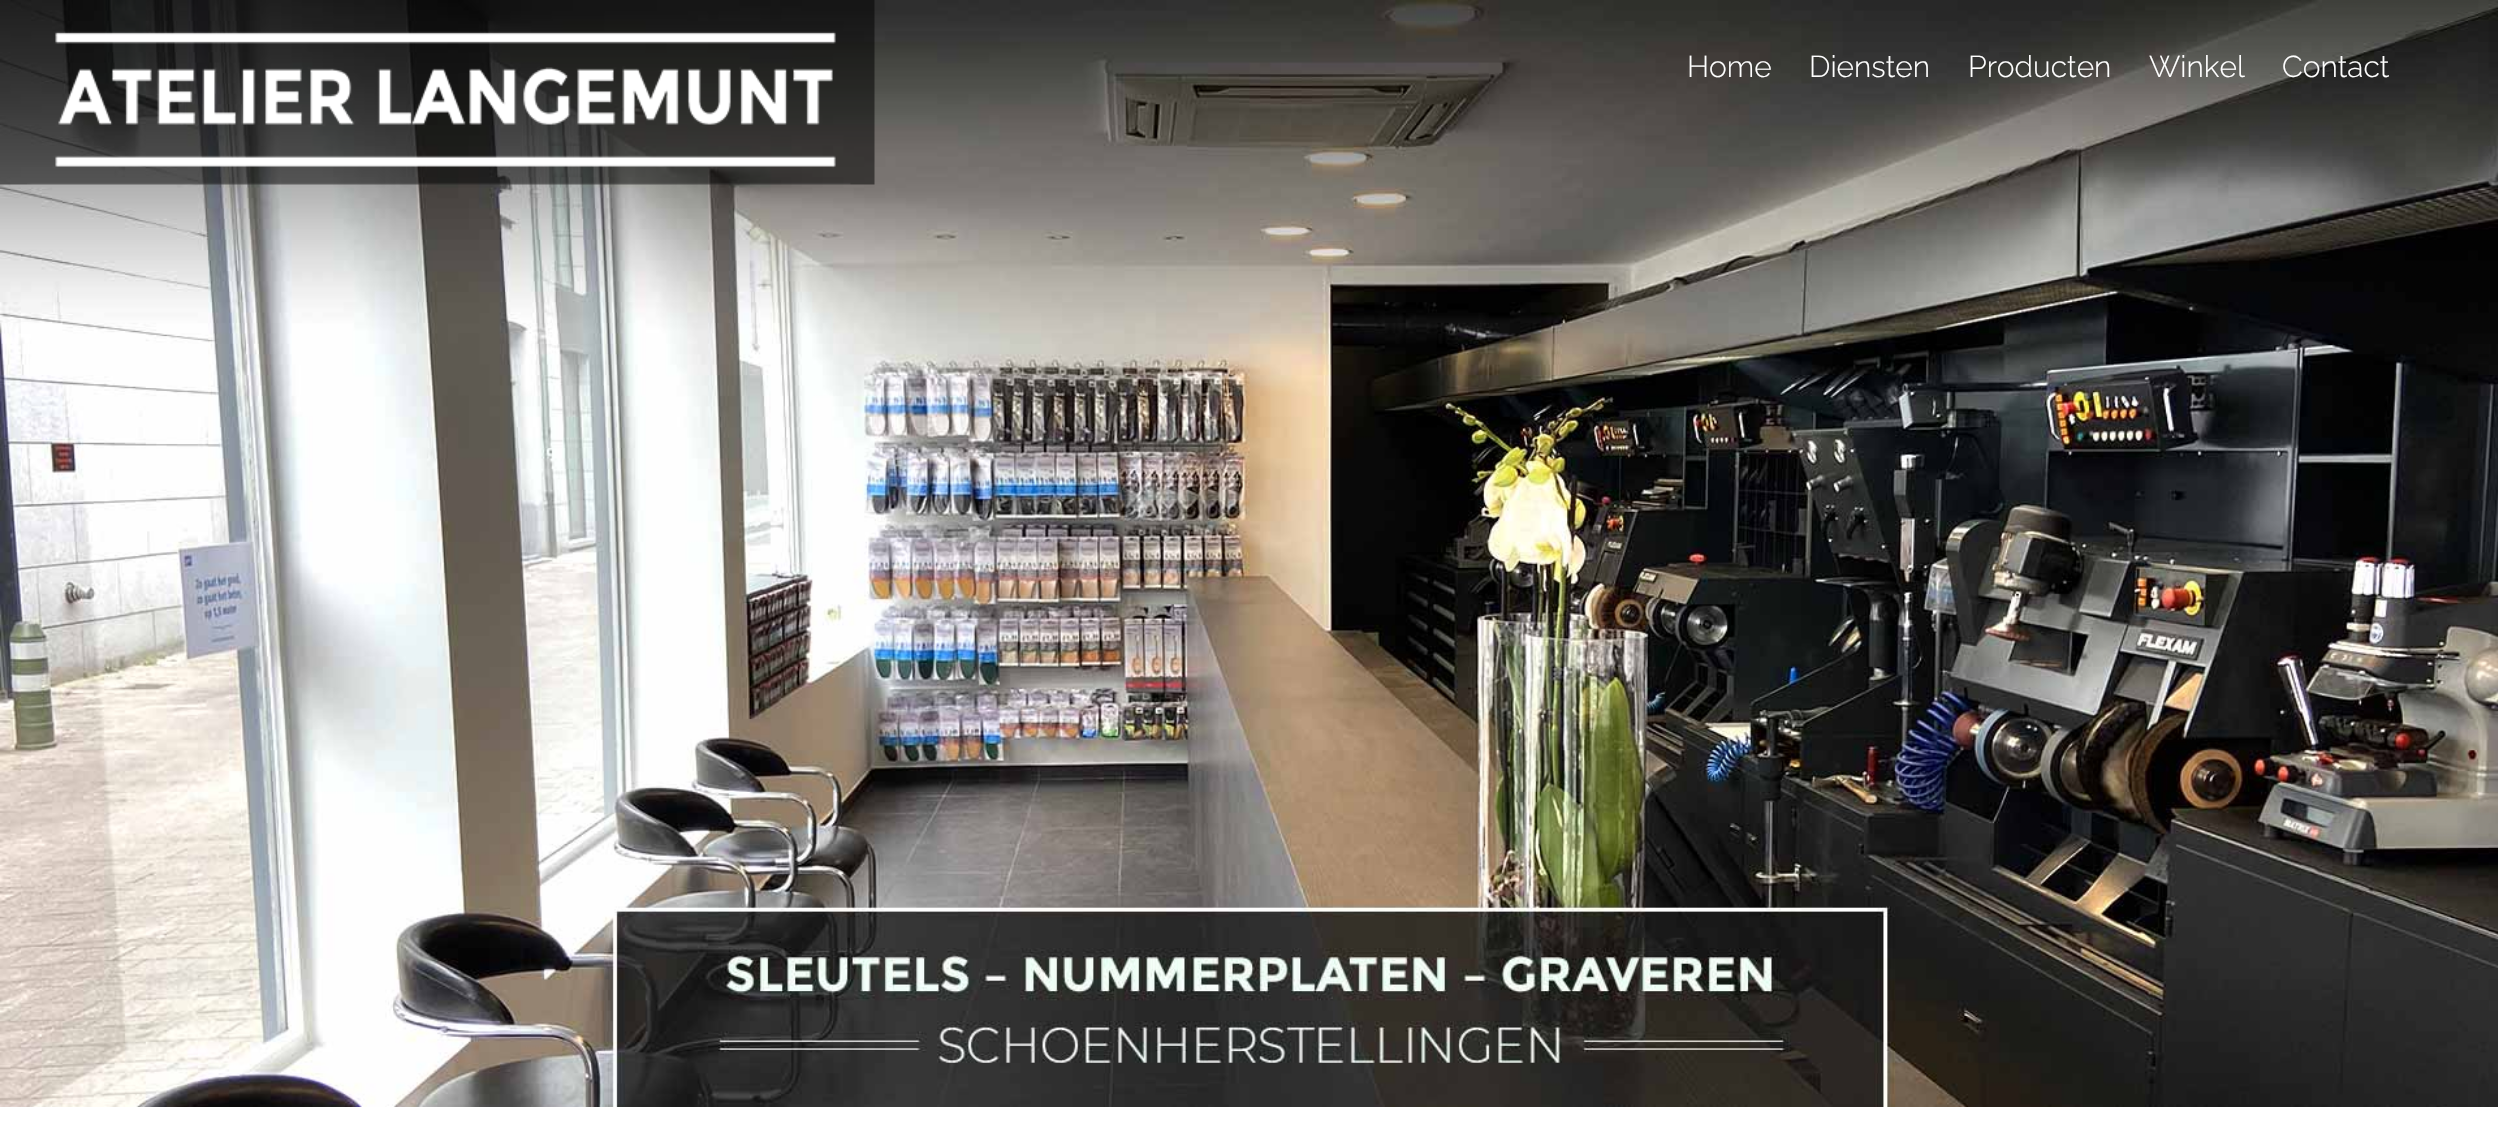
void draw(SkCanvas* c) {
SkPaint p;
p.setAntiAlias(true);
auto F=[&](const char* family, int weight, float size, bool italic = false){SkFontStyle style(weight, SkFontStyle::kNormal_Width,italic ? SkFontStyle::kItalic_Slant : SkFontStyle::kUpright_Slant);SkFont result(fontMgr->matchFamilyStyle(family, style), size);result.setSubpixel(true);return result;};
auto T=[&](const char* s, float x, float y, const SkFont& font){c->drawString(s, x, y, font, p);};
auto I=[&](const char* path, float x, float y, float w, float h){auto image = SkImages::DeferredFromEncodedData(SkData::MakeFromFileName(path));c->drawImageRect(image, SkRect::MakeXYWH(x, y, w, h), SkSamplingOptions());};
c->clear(0xffffffff);
I("1.png",0,0,2498,1107);
I("2.png",0,0,875,185);
auto f1 = F("Raleway",300,30);
p.setColor(0xffffffff);
T("Home",1687,77,f1);
T("Diensten",1809,77,f1);
T("Producten",1968,77,f1);
T("Winkel",2149,77,f1);
T("Contact",2282,77,f1);
}
